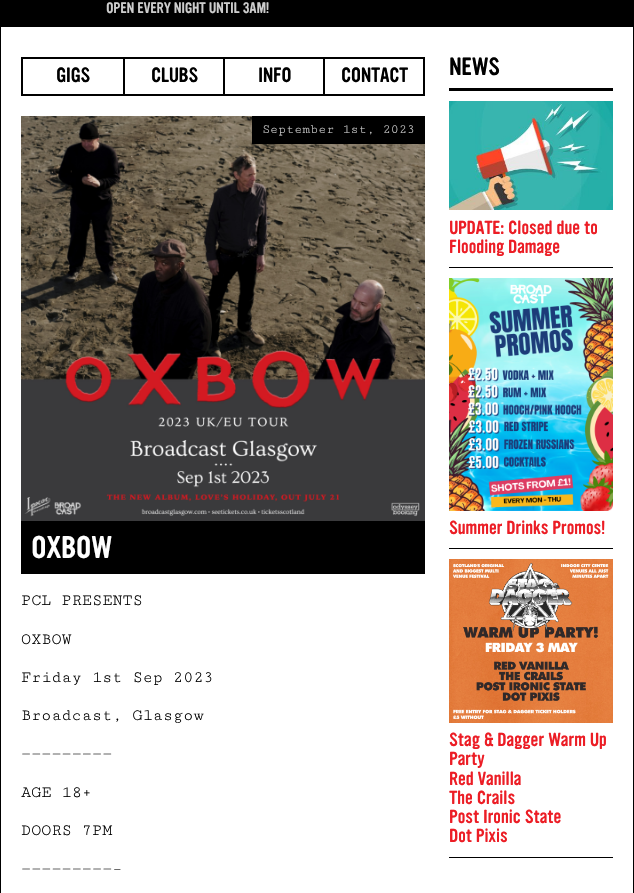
void draw(SkCanvas* c) {
SkPaint p;
p.setAntiAlias(true);
auto F=[&](const char* family, int weight, float size, bool italic = false){SkFontStyle style(weight, SkFontStyle::kNormal_Width,italic ? SkFontStyle::kItalic_Slant : SkFontStyle::kUpright_Slant);SkFont result(fontMgr->matchFamilyStyle(family, style), size);result.setSubpixel(true);return result;};
auto T=[&](const char* s, float x, float y, const SkFont& font){c->drawString(s, x, y, font, p);};
auto R=[&](float x, float y, float w, float h){c->drawRect(SkRect::MakeXYWH(x, y, w, h), p);};
auto I=[&](const char* path, float x, float y, float w, float h){auto image = SkImages::DeferredFromEncodedData(SkData::MakeFromFileName(path));c->drawImageRect(image, SkRect::MakeXYWH(x, y, w, h), SkSamplingOptions());};
c->clear(0xffffffff);
p.setStroke(true);
p.setStrokeWidth(1);
p.setColor(0xff000000);
c->drawRect(SkRect::MakeXYWH(.5,-.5,633,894),p);
p.setStroke(false);
R(1,0,632,27);
auto f1 = F("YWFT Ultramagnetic",700,12.9);
p.setColor(0xffcccccc);
T("OPEN EVERY NIGHT UNTIL 3AM!",106,13,f1);
p.setStroke(true);
p.setStrokeWidth(2);
p.setColor(0xff000000);
c->drawRect(SkRect::MakeXYWH(22,58,402,37),p);
auto f2 = F("YWFT Ultramagnetic",700,17.5);
p.setStroke(false);
T("GIGS",56,82,f2);
R(123,59,2,35);
T("CLUBS",151,82,f2);
R(223,59,2,35);
T("INFO",258,82,f2);
R(323,59,2,35);
T("CONTACT",341,82,f2);
I("1.png",21,116,404,405);
R(252,116,173,28);
auto f3 = F("Cutive Mono",400,13.3);
p.setColor(0xffcccccc);
T("September 1st, 2023",262,133,f3);
p.setColor(0xff000000);
R(21,521,404,53);
auto f4 = F("YWFT Ultramagnetic",700,26.5);
p.setColor(0xffffffff);
T("OXBOW",31,558,f4);
auto f5 = F("Cutive Mono",400,16.75);
p.setColor(0xff000000);
T("PCL PRESENTS",21,605,f5);
T("OXBOW",21,644,f5);
T("Friday 1st Sep 2023",21,682,f5);
T("Broadcast, Glasgow",21,720,f5);
T("—————————",21,758,f5);
T("AGE 18+",21,797,f5);
T("DOORS 7PM",21,835,f5);
T("—————————–",21,873,f5);
R(449,88,164,3);
auto f6 = F("YWFT Ultramagnetic",700,21);
T("NEWS",449,75,f6);
R(449,267,164,1);
I("2.png",449,101,164,109);
auto f7 = F("YWFT Ultramagnetic",700,16);
p.setColor(0xffec1d25);
T("UPDATE: Closed due to",449,234,f7);
T("Flooding Damage",449,253,f7);
p.setColor(0xff000000);
R(449,548,164,1);
I("3.png",449,278,164,233);
p.setColor(0xffec1d25);
T("Summer Drinks Promos!",449,534,f7);
p.setColor(0xff000000);
R(449,857,164,1);
I("4.png",449,559,164,164);
p.setColor(0xffec1d25);
T("Stag & Dagger Warm Up",449,746,f7);
T("Party",449,765,f7);
T("Red Vanilla",449,785,f7);
T("The Crails",449,804,f7);
T("Post Ironic State",449,823,f7);
T("Dot Pixis",449,842,f7);
}
